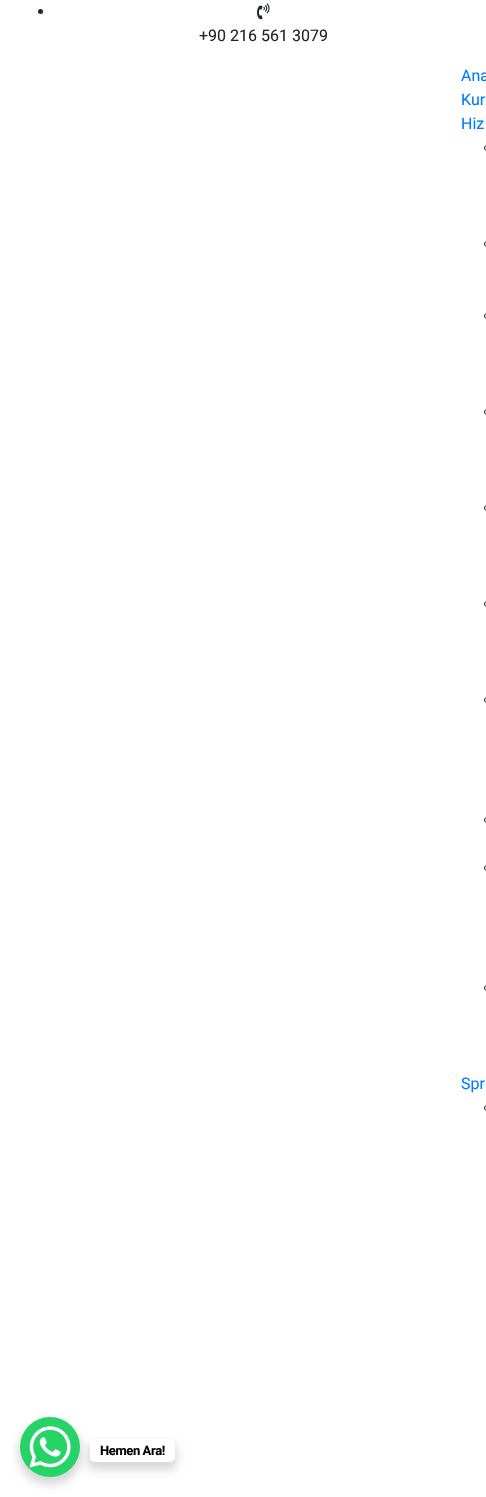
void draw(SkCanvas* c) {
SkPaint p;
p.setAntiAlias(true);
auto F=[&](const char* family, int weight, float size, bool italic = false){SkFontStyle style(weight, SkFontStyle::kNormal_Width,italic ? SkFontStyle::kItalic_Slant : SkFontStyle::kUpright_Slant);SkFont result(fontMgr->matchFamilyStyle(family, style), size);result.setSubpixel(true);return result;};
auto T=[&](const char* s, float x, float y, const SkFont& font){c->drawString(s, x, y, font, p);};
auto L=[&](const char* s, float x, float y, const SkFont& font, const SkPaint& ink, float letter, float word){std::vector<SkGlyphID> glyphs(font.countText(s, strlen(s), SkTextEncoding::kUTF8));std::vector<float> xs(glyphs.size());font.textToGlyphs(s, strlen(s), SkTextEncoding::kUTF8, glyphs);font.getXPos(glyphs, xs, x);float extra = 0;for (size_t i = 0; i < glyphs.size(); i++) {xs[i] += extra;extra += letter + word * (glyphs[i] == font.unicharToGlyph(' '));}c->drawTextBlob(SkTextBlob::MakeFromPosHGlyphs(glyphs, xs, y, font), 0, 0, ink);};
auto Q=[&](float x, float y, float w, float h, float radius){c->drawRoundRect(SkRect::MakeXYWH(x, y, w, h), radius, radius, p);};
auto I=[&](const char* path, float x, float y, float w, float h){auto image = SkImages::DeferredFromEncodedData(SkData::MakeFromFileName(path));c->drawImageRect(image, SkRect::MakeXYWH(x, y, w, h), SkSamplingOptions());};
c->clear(0xffffffff);
p.setColor(0xff212529);
c->drawCircle(40.5,11.5,2.5,p);
I("1.png",257,3,13,17);
auto f1 = F("Roboto",400,16);
T("+90 216 561 3079",199,41,f1);
p.setColor(0xff007bff);
T("Ana",461,81,f1);
T("Kur",461,105,f1);
T("Hiz",461,129,f1);
p.setStroke(true);
p.setStrokeWidth(1);
p.setColor(0xff212529);
c->drawCircle(487,148,2.5,p);
c->drawCircle(487,244,2.5,p);
c->drawCircle(487,316,2.5,p);
c->drawCircle(487,412,2.5,p);
c->drawCircle(487,508,2.5,p);
c->drawCircle(487,604,2.5,p);
c->drawCircle(487,700,2.5,p);
c->drawCircle(487,820,2.5,p);
c->drawCircle(487,868,2.5,p);
c->drawCircle(487,988,2.5,p);
p.setStroke(false);
p.setColor(0xff007bff);
T("Spr",461,1089,f1);
p.setStroke(true);
p.setColor(0xff212529);
c->drawCircle(487,1108,2.5,p);
p.setStroke(false);
p.setColor(0x26000000);
p.setMaskFilter(SkMaskFilter::MakeBlur(kNormal_SkBlurStyle, 4));
c->drawRoundRect(SkRect::MakeXYWH(18,1421,64,64),32,32,p);
p.setMaskFilter(nullptr);
p.setColor(0xff25d366);
c->drawCircle(50,1447,30,p);
I("2.png",29,1426,42,42);
p.setColor(0x26000000);
p.setMaskFilter(SkMaskFilter::MakeBlur(kNormal_SkBlurStyle, 4));
c->drawRoundRect(SkRect::MakeXYWH(88,1443,89,27),7,7,p);
p.setMaskFilter(nullptr);
p.setColor(0xffffffff);
Q(90,1439,85,23,5);
auto f2 = F("Roboto",700,13);
p.setColor(0xff000000);
L("Hemen Ara!",100,1455,f2,p,-.4,0);
}
